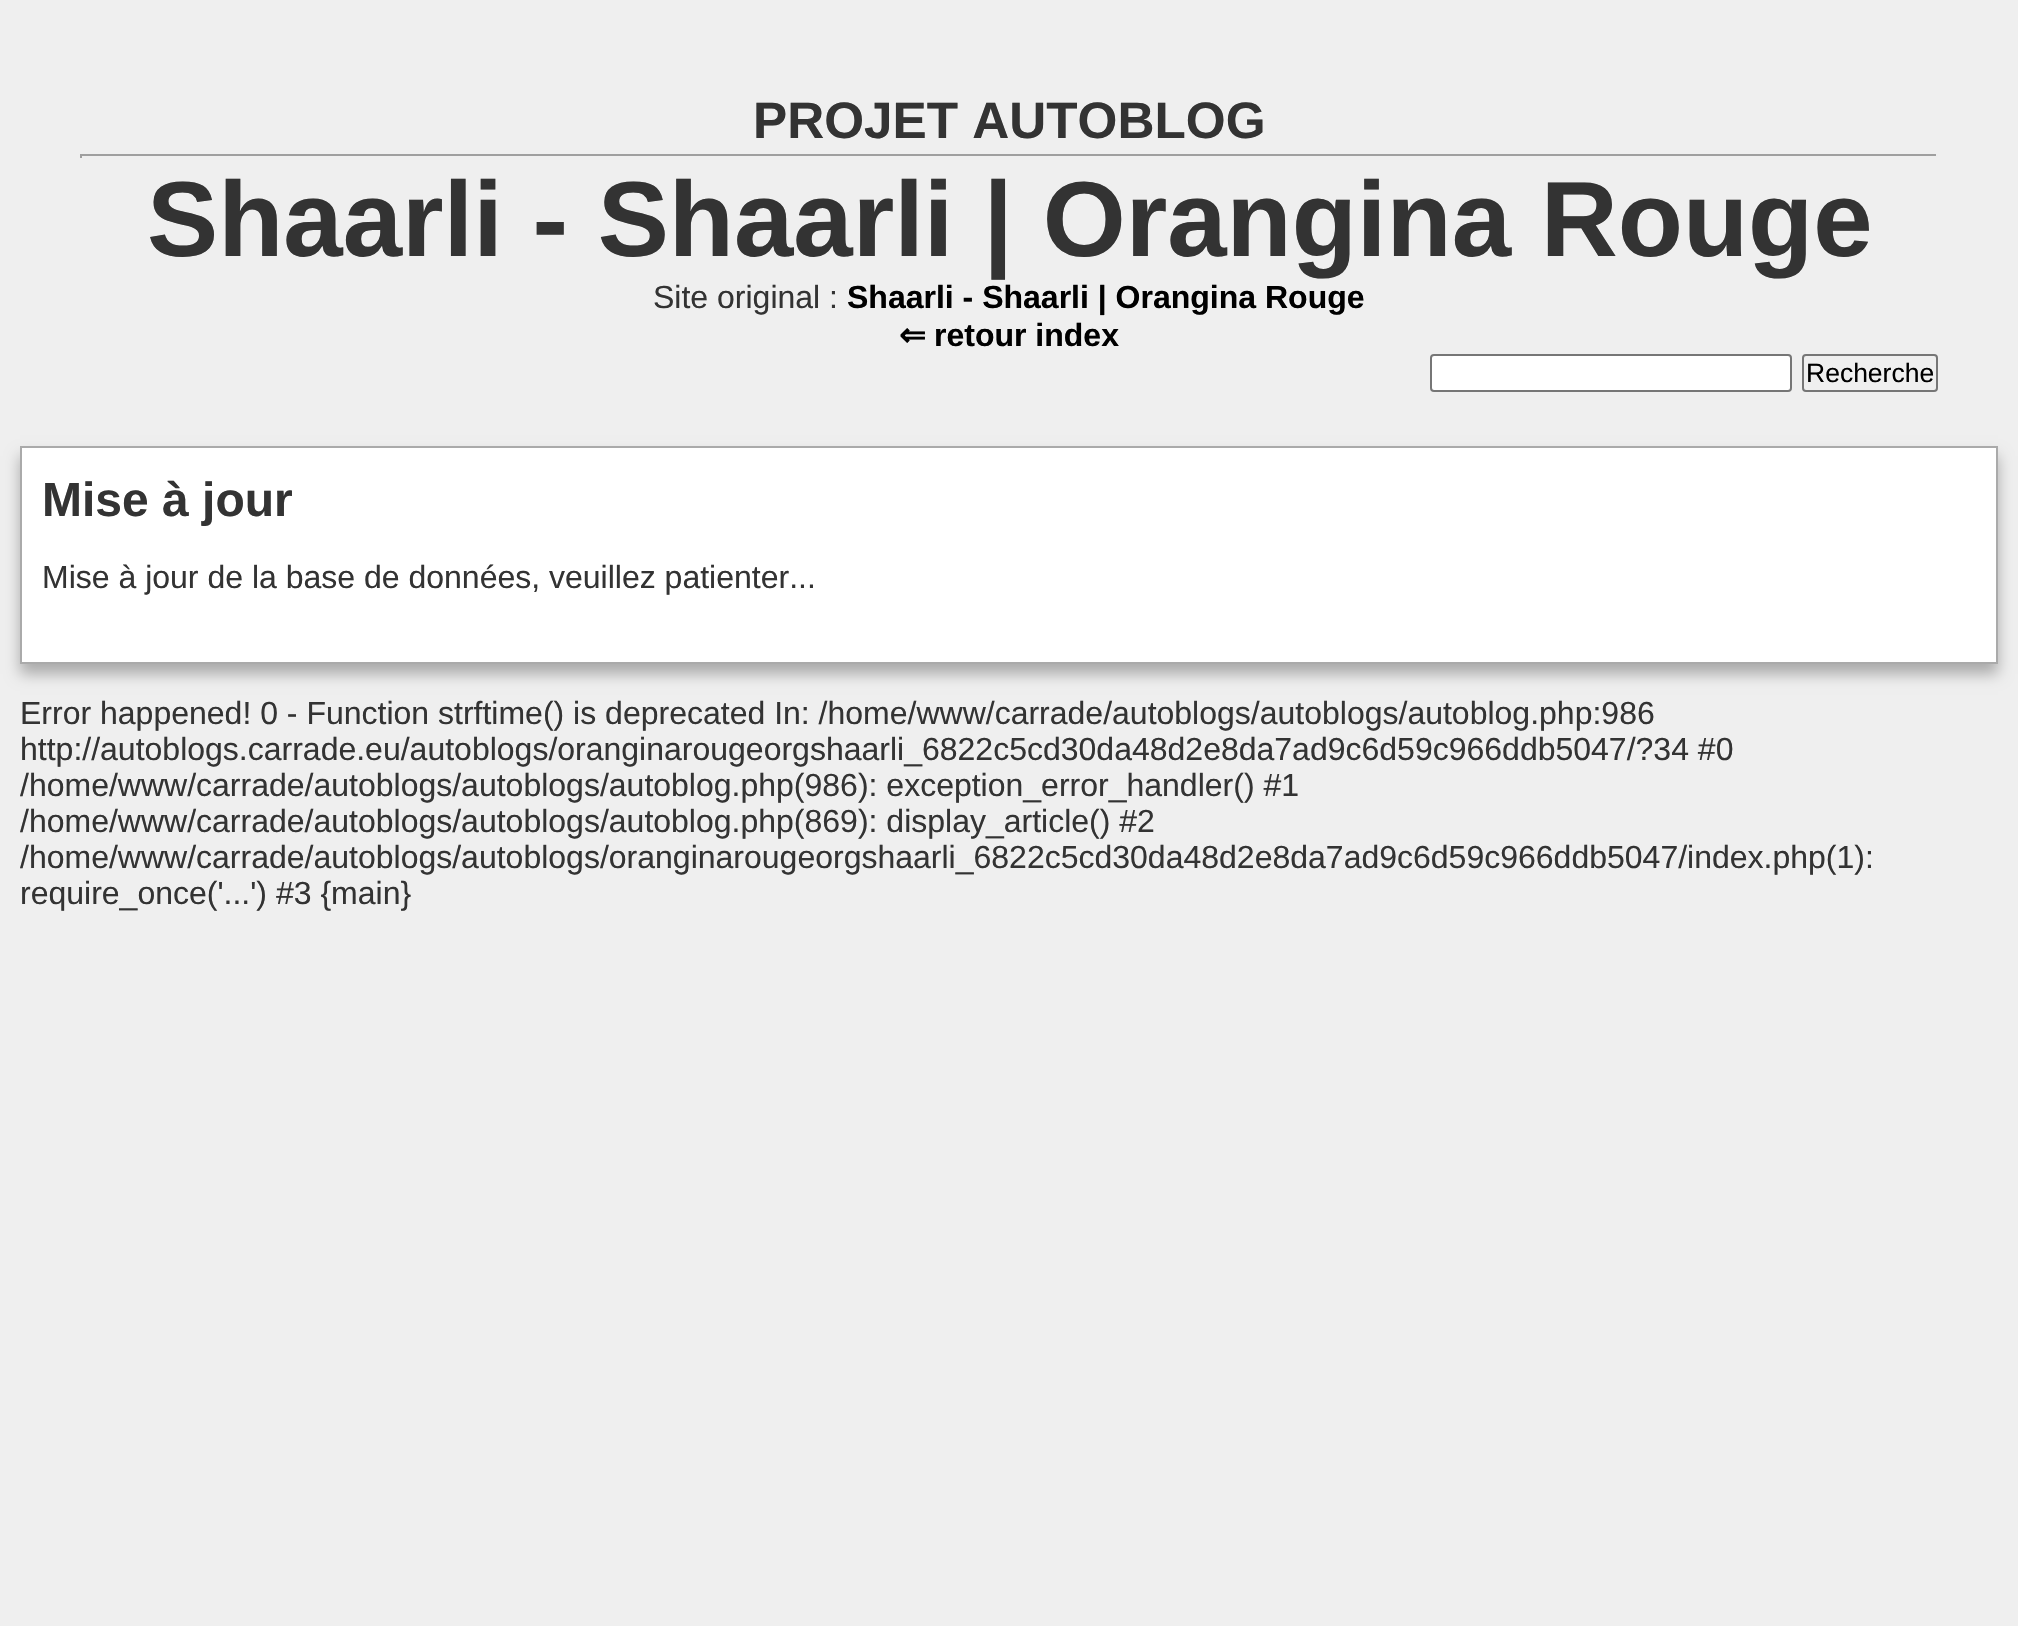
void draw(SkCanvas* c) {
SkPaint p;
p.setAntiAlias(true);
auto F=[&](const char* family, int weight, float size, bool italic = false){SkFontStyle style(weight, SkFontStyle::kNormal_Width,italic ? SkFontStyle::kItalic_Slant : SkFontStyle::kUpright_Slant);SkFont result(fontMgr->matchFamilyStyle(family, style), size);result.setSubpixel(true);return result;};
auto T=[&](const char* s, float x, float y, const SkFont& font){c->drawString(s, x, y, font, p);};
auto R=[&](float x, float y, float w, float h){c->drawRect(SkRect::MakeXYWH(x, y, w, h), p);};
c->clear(0xffefefef);
auto f1 = F("Liberation Sans",700,51.25);
p.setColor(0xff333333);
T("PROJET AUTOBLOG",753,138,f1);
p.setColor(0xff9f9f9f);
R(80,154,1858,2);
p.setColor(0xffeeeeee);
R(1936,154,2,4);
p.setColor(0xff9f9f9f);
R(80,154,2,4);
auto f2 = F("Liberation Sans",700,106.7);
p.setColor(0xff333333);
T("Shaarli - Shaarli | Orangina Rouge",147,256,f2);
auto f3 = F("Liberation Sans",400,32);
T("Site original :",653,308,f3);
auto f4 = F("Liberation Sans",700,32);
p.setColor(0xff000000);
T("Shaarli - Shaarli | Orangina Rouge",847,308,f4);
auto f5 = F("DejaVu Sans",700,32);
T("⇐",899,346,f5);
T("retour index",934,346,f4);
p.setColor(0xffffffff);
c->drawRoundRect(SkRect::MakeXYWH(1431,355,360,36),3,3,p);
p.setStroke(true);
p.setStrokeWidth(2);
p.setColor(0xff767676);
c->drawRoundRect(SkRect::MakeXYWH(1431,355,360,36),3,3,p);
c->drawRoundRect(SkRect::MakeXYWH(1803,355,134,36),3,3,p);
auto f6 = F("Liberation Sans",400,26.5);
p.setStroke(false);
p.setColor(0xff000000);
T("Recherche",1806,382,f6);
p.setColor(0xffaaaaaa);
p.setMaskFilter(SkMaskFilter::MakeBlur(kNormal_SkBlurStyle, 7));
c->drawRect(SkRect::MakeXYWH(20,456,1978,218),p);
p.setMaskFilter(nullptr);
p.setColor(0xffffffff);
c->drawRect(SkRect::MakeXYWH(21,447,1976,216),p);
p.setStroke(true);
p.setColor(0xffaaaaaa);
c->drawRect(SkRect::MakeXYWH(21,447,1976,216),p);
auto f7 = F("Liberation Sans",700,48);
p.setStroke(false);
p.setColor(0xff333333);
T("Mise à jour",42,516,f7);
T("Mise à jour de la base de données, veuillez patienter...",42,588,f3);
T("Error happened! 0 - Function strftime() is deprecated In: /home/www/carrade/autoblogs/autoblogs/autoblog.php:986",20,724,f3);
T("http://autoblogs.carrade.eu/autoblogs/oranginarougeorgshaarli_6822c5cd30da48d2e8da7ad9c6d59c966ddb5047/?34 #0",20,760,f3);
T("/home/www/carrade/autoblogs/autoblogs/autoblog.php(986): exception_error_handler() #1",20,796,f3);
T("/home/www/carrade/autoblogs/autoblogs/autoblog.php(869): display_article() #2",20,832,f3);
T("/home/www/carrade/autoblogs/autoblogs/oranginarougeorgshaarli_6822c5cd30da48d2e8da7ad9c6d59c966ddb5047/index.php(1):",20,868,f3);
T("require_once('...') #3 {main}",20,904,f3);
}
